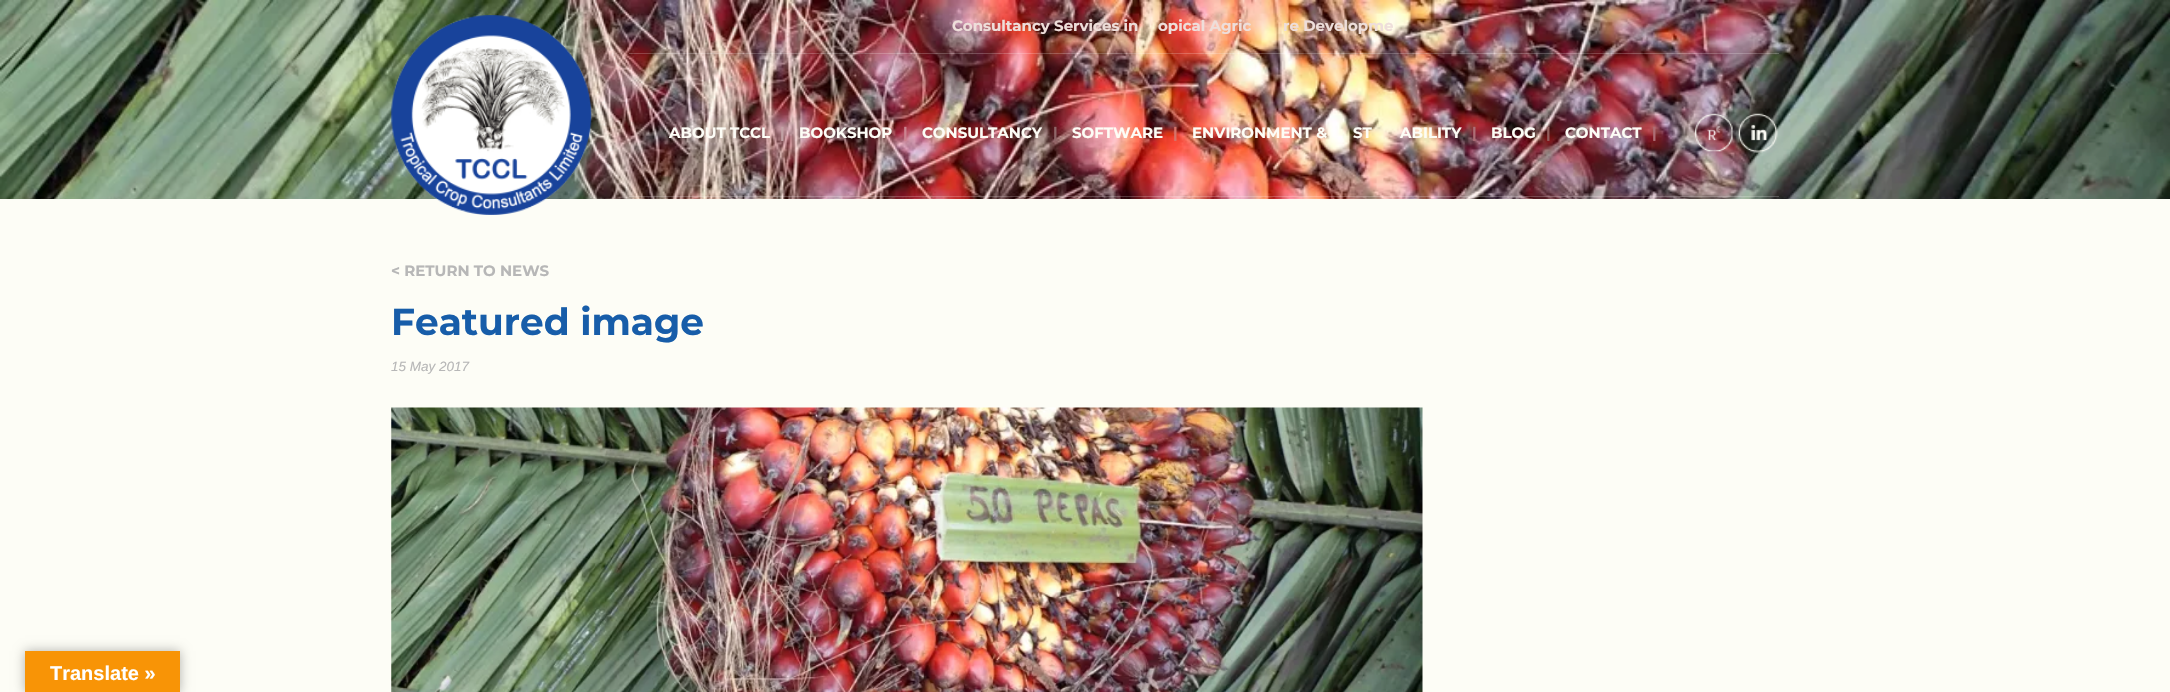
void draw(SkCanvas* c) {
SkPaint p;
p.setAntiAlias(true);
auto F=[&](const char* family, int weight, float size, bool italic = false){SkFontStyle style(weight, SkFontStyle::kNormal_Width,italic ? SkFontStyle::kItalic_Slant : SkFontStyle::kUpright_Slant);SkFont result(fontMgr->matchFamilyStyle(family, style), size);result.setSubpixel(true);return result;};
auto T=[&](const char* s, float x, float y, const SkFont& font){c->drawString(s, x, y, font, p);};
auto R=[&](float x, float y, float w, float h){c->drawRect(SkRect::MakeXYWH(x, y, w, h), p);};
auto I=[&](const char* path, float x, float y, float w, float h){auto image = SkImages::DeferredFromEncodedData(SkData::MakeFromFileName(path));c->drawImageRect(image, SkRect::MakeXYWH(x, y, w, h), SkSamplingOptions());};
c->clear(0xfffdfdf6);
I("1.png",0,0,2170,199);
I("2.png",391,15,201,200);
p.setColor(0x33ffffff);
R(629,53,1150,1);
auto f1 = F("Montserrat",700,15);
p.setColor(0xffeededa);
T("Consultancy Services in",952,31,f1);
T("opical Agric",1158,31,f1);
T("re Developme",1283,31,f1);
p.setColor(0x33ffffff);
R(629,196,1150,1);
p.setColor(0xfffdfdf6);
T("ABOUT TCCL",669,138,f1);
p.setColor(0xffc2a2a5);
T("|",780,138,f1);
p.setColor(0xfffdfdf6);
T("BOOKSHOP",799,138,f1);
p.setColor(0xffcb8490);
T("|",903,138,f1);
p.setColor(0xfffdfdf6);
T("CONSULTANCY",922,138,f1);
p.setColor(0xff8e6668);
T("|",1053,138,f1);
p.setColor(0xfffdfdf6);
T("SOFTWARE",1072,138,f1);
p.setColor(0xffd5746a);
T("|",1173,138,f1);
p.setColor(0xfffdfdf6);
T("ENVIRONMENT &",1192,138,f1);
T("ST",1353,138,f1);
T("ABILITY",1400,138,f1);
p.setColor(0xffad6e75);
T("|",1472,138,f1);
p.setColor(0xfffdfdf6);
T("BLOG",1491,138,f1);
p.setColor(0xff915f5d);
T("|",1546,138,f1);
p.setColor(0xfffdfdf6);
T("CONTACT",1565,138,f1);
p.setColor(0xffad6e75);
T("|",1652,138,f1);
I("3.png",1694,113,39,39);
I("4.png",1738,113,40,40);
p.setColor(0xffb7b7b7);
T("< RETURN TO NEWS",391,276,f1);
auto f2 = F("Montserrat",700,37.5);
p.setColor(0xff175da9);
T("Featured image",391,335,f2);
auto f3 = F("Liberation Sans",400,13.5,true);
p.setColor(0xffb7b7b7);
T("15 May 2017",391,371,f3);
I("5.png",391,407,1032,285);
p.setColor(0x4d000000);
p.setMaskFilter(SkMaskFilter::MakeBlur(kNormal_SkBlurStyle, 5.5));
c->drawRect(SkRect::MakeXYWH(25,651,155,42),p);
p.setMaskFilter(nullptr);
p.setColor(0xfff89406);
R(25,651,155,41);
auto f4 = F("Liberation Sans",700,20);
p.setColor(0xffffffff);
T("Translate »",50,680,f4);
}
